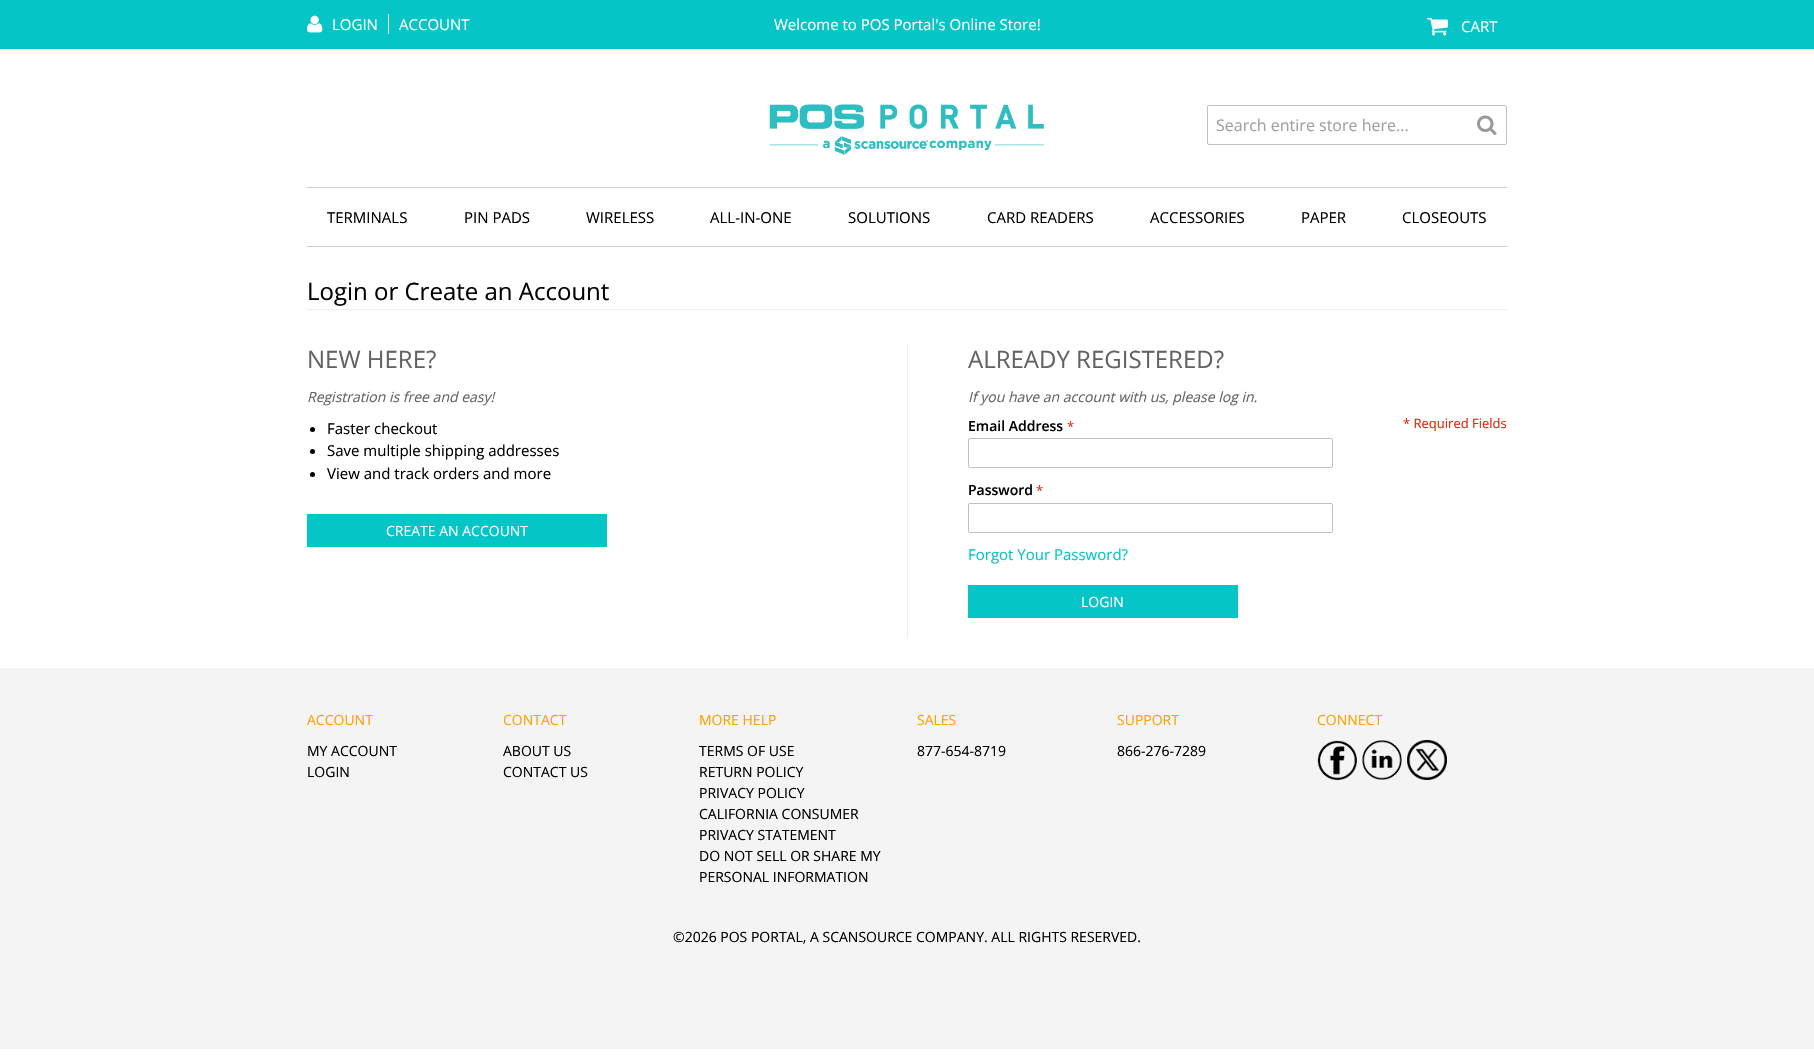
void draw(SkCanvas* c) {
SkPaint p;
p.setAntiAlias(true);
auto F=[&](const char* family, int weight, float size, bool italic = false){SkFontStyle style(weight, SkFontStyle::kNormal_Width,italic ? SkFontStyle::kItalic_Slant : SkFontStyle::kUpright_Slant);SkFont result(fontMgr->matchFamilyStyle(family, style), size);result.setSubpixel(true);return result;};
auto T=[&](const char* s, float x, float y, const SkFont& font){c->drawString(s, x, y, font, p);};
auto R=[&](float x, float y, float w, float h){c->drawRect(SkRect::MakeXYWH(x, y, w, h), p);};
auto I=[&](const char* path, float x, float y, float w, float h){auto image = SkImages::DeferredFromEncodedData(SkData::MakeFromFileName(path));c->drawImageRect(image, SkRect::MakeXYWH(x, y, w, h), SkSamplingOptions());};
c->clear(0xffffffff);
p.setColor(0xff05c5c6);
R(0,0,1814,49);
p.setColor(0xffffffff);
R(388,14,1,20);
I("1.png",307,15,16,18);
auto f1 = F("Open Sans",400,15);
T("LOGIN",332,30,f1);
T("ACCOUNT",399,30,f1);
T("Welcome to POS Portal's Online Store!",774,30,f1);
I("2.png",1427,17,21,19);
T("CART",1461,32,f1);
I("3.png",769,104,275,51);
p.setStroke(true);
p.setStrokeWidth(1);
p.setColor(0xffc0c0c0);
c->drawRoundRect(SkRect::MakeXYWH(1207.5,105.5,299,39),1.5,1.5,p);
auto f2 = F("Open Sans",400,16);
p.setStroke(false);
p.setColor(0xffa0a0a0);
T("Search entire store here...",1216,131,f2);
I("4.png",1477,115,20,20);
p.setColor(0xffcccccc);
R(307,187,1200,1);
R(307,246,1200,1);
p.setColor(0xff000000);
T("TERMINALS",327,223,f1);
T("PIN PADS",464,223,f1);
T("WIRELESS",586,223,f1);
T("ALL-IN-ONE",710,223,f1);
T("SOLUTIONS",848,223,f1);
T("CARD READERS",987,223,f1);
T("ACCESSORIES",1150,223,f1);
T("PAPER",1301,223,f1);
T("CLOSEOUTS",1402,223,f1);
p.setColor(0xffededed);
R(307,309,1200,1);
auto f3 = F("Open Sans",400,24);
p.setColor(0xff000000);
T("Login or Create an Account",307,300,f3);
p.setColor(0xff636363);
T("NEW HERE?",307,368,f3);
auto f4 = F("Open Sans",400,14,true);
T("Registration is free and easy!",307,402,f4);
p.setColor(0xff000000);
c->drawCircle(312.5,429.5,2.5,p);
T("Faster checkout",327,434,f1);
c->drawCircle(312.5,451.5,2.5,p);
T("Save multiple shipping addresses",327,456,f1);
c->drawCircle(312.5,474.5,2.5,p);
T("View and track orders and more",327,479,f1);
p.setColor(0xff05c5c6);
R(307,514,300,33);
auto f5 = F("Open Sans",400,14);
p.setColor(0xffffffff);
T("CREATE AN ACCOUNT",386,536,f5);
p.setColor(0xffededed);
R(907,345,1,293);
p.setColor(0xff636363);
T("ALREADY REGISTERED?",968,368,f3);
T("If you have an account with us, please log in.",968,402,f4);
auto f6 = F("Open Sans",600,14);
p.setColor(0xff000000);
T("Email Address",968,431,f6);
auto f7 = F("Open Sans",400,13);
p.setColor(0xffdf280a);
T("*",1067,431,f7);
p.setStroke(true);
p.setColor(0xffc0c0c0);
c->drawRoundRect(SkRect::MakeXYWH(968.5,438.5,364,29),1.5,1.5,p);
p.setStroke(false);
p.setColor(0xff000000);
T("Password",968,495,f6);
p.setColor(0xffdf280a);
T("*",1036,495,f7);
p.setStroke(true);
p.setColor(0xffc0c0c0);
c->drawRoundRect(SkRect::MakeXYWH(968.5,503.5,364,29),1.5,1.5,p);
p.setStroke(false);
p.setColor(0xff05c5c6);
T("Forgot Your Password?",968,560,f1);
p.setColor(0xffdf280a);
T("* Required Fields",1403,428,f7);
p.setColor(0xff05c5c6);
R(968,585,270,33);
p.setColor(0xffffffff);
T("LOGIN",1081,607,f5);
p.setColor(0xfff4f4f4);
R(0,668,1814,381);
p.setColor(0xffffa200);
T("ACCOUNT",307,725,f5);
p.setColor(0xff000000);
T("MY ACCOUNT",307,756,f5);
T("LOGIN",307,777,f5);
p.setColor(0xffffa200);
T("CONTACT",503,725,f5);
p.setColor(0xff000000);
T("ABOUT US",503,756,f5);
T("CONTACT US",503,777,f5);
p.setColor(0xffffa200);
T("MORE HELP",699,725,f5);
p.setColor(0xff000000);
T("TERMS OF USE",699,756,f5);
T("RETURN POLICY",699,777,f5);
T("PRIVACY POLICY",699,798,f5);
T("CALIFORNIA CONSUMER",699,819,f5);
T("PRIVACY STATEMENT",699,840,f5);
T("DO NOT SELL OR SHARE MY",699,861,f5);
T("PERSONAL INFORMATION",699,882,f5);
p.setColor(0xffffa200);
T("SALES",917,725,f5);
p.setColor(0xff000000);
T("877-654-8719",917,756,f5);
p.setColor(0xffffa200);
T("SUPPORT",1117,725,f5);
p.setColor(0xff000000);
T("866-276-7289",1117,756,f5);
p.setColor(0xffffa200);
T("CONNECT",1317,725,f5);
I("5.png",1317,740,40,40);
I("6.png",1362,740,40,40);
I("7.png",1407,740,40,40);
p.setColor(0xff000000);
T("©2026 POS PORTAL, A SCANSOURCE COMPANY. ALL RIGHTS RESERVED.",673,942,f5);
}
